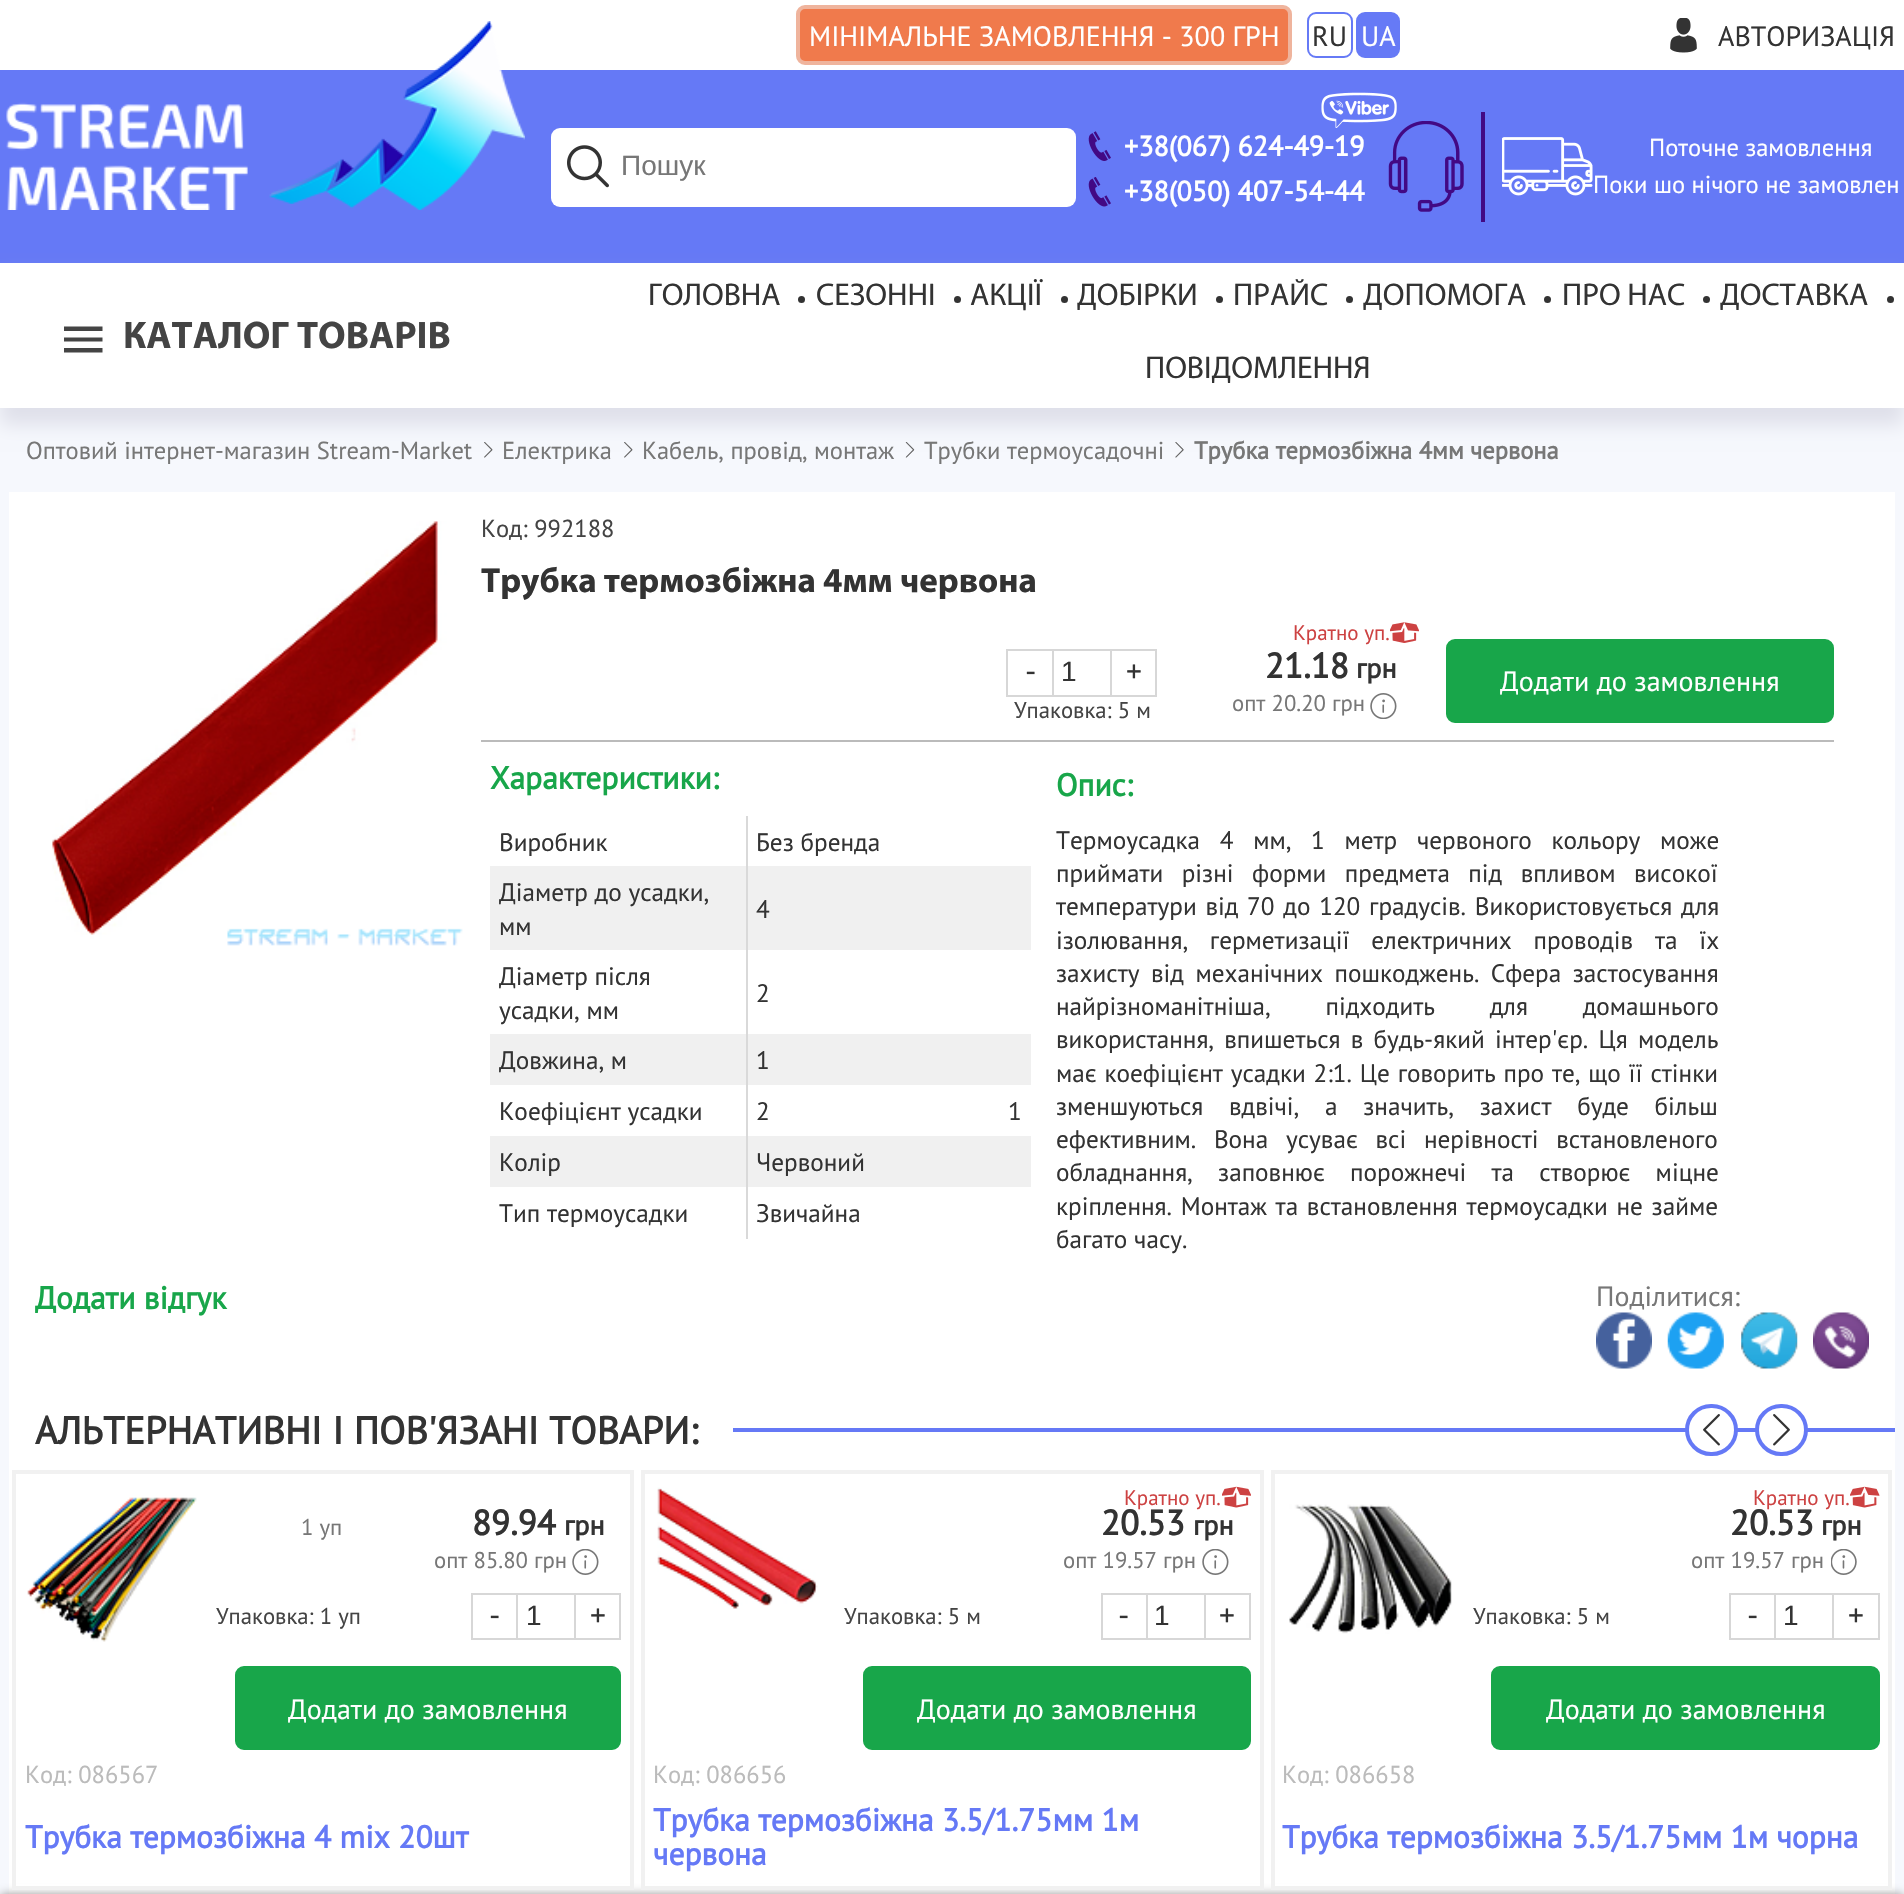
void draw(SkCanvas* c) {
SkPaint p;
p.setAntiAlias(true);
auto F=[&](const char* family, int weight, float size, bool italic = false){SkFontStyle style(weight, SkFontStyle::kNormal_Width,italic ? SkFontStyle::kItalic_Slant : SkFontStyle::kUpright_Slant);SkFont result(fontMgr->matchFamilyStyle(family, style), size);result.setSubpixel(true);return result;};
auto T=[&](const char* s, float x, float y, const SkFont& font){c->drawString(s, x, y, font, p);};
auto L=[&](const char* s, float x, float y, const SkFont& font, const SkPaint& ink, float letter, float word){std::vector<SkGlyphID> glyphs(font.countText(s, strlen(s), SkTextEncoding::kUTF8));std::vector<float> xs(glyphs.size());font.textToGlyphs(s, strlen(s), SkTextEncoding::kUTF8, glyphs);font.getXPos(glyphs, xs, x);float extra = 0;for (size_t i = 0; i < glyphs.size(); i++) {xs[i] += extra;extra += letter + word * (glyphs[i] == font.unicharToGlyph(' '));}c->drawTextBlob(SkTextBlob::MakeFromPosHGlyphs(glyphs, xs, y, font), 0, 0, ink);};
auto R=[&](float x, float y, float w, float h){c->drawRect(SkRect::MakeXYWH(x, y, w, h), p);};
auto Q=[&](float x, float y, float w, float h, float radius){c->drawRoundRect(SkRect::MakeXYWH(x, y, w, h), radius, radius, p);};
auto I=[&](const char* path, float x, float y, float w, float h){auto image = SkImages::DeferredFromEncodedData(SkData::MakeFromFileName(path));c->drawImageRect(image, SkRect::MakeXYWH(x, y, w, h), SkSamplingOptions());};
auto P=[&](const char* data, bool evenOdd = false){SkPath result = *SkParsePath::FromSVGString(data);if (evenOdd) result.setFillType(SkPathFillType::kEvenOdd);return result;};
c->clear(0xfff6f8fd);
p.setColor(0xffffffff);
R(0,0,1904,70);
p.setColor(0xfff07a4c);
c->drawRoundRect(SkRect::MakeXYWH(798,7,492,56),7,7,p);
p.setStroke(true);
p.setStrokeWidth(4);
p.setColor(0xffefb49d);
c->drawRoundRect(SkRect::MakeXYWH(798,7,492,56),7,7,p);
auto f1 = F("PT Sans",400,28);
p.setStroke(false);
p.setColor(0xffffffff);
T("МІНІМАЛЬНЕ ЗАМОВЛЕННЯ - 300 ГРН",809,46,f1);
p.setStroke(true);
p.setStrokeWidth(2);
p.setColor(0xff667af6);
c->drawRoundRect(SkRect::MakeXYWH(1308,13,44,44),8,8,p);
p.setStroke(false);
p.setColor(0xff333333);
T("RU",1312,46,f1);
p.setColor(0xff667af6);
c->drawRoundRect(SkRect::MakeXYWH(1357,13,42,44),8,8,p);
p.setStroke(true);
c->drawRoundRect(SkRect::MakeXYWH(1357,13,42,44),8,8,p);
p.setStroke(false);
p.setColor(0xffffffff);
T("UA",1361,46,f1);
I("1.png",1670,18,27,35);
p.setColor(0xff333333);
T("АВТОРИЗАЦІЯ",1718,46,f1);
p.setColor(0xff6579f6);
R(0,70,1904,193);
I("2.png",6,21,519,189);
p.setColor(0xffffffff);
Q(551,128,525,79,9);
I("3.png",567,145,42,43);
auto f2 = F("Liberation Sans",400,28);
p.setColor(0xff777777);
T("Пошук",621,175,f2);
I("7.png",1388,121,76,91);
I("4.png",1321,92,76,36);
I("5.png",1088,131,23,30);
auto f3 = F("PT Sans",700,28);
p.setColor(0xffffffff);
T("+38(067) 624-49-19",1124,156,f3);
I("6.png",1088,177,23,30);
T("+38(050) 407-54-44",1124,201,f3);
p.setColor(0xff420984);
R(1481,112,4,110);
I("8.png",1502,137,91,59);
auto f4 = F("PT Sans",400,24.5);
p.setColor(0xffffffff);
T("Поточне замовлення",1649,156,f4);
T("Поки шо нічого не замовлен",1593,193,f4);
p.setColor(0xffdfe0ea);
p.setMaskFilter(SkMaskFilter::MakeBlur(kNormal_SkBlurStyle, 9));
c->drawRect(SkRect::MakeXYWH(0,280,1904,145),p);
p.setMaskFilter(nullptr);
p.setColor(0xffffffff);
R(0,263,1904,145);
p.setColor(0xff444444);
c->drawPath(P("M64 352.5h38.5v-4.5h-38.5zm0-11h38.5v-4h-38.5zm0-15v4.5h38.5v-4.5z"),p);
auto f5 = F("Myriad",700,38.5);
T("КАТАЛОГ ТОВАРІВ",123,348,f5);
auto f6 = F("Myriad",400,31.5);
p.setColor(0xff333333);
T("ГОЛОВНА",648,305,f6);
c->drawCircle(801.5,299.5,3.5,p);
T("СЕЗОННІ",816,305,f6);
c->drawCircle(957.5,299.5,3.5,p);
T("АКЦІЇ",970,305,f6);
c->drawCircle(1064.5,299.5,3.5,p);
T("ДОБІРКИ",1077,305,f6);
c->drawCircle(1219.5,299.5,3.5,p);
T("ПРАЙС",1233,305,f6);
c->drawCircle(1349.5,299.5,3.5,p);
T("ДОПОМОГА",1363,305,f6);
c->drawCircle(1547.5,299.5,3.5,p);
T("ПРО НАС",1562,305,f6);
c->drawCircle(1706.5,299.5,3.5,p);
T("ДОСТАВКА",1720,305,f6);
c->drawCircle(1890.5,299.5,3.5,p);
T("ПОВІДОМЛЕННЯ",1145,378,f6);
p.setColor(0xff777777);
T("Оптовий інтернет-магазин Stream-Market",26,459,f4);
I("9.png",484,442,9,16);
T("Електрика",502,459,f4);
I("9.png",624,442,9,16);
T("Кабель, провід, монтаж",642,459,f4);
I("10.png",905,442,10,16);
T("Трубки термоусадочні",924,459,f4);
I("11.png",1175,442,9,16);
auto f7 = F("PT Sans",700,24.5);
T("Трубка термозбіжна 4мм червона",1194,459,f7);
p.setColor(0xffffffff);
R(9,492,1886,1402);
I("12.png",52,521,411,425);
p.setColor(0xffbbbbbb);
R(481,740,1353,2);
p.setColor(0xff444444);
T("Код: 992188",481,537,f4);
auto f8 = F("Myriad",700,35);
p.setColor(0xff333333);
T("Трубка термозбіжна 4мм червона",481,592,f8);
p.setStroke(true);
p.setColor(0xffd7d7d7);
c->drawRect(SkRect::MakeXYWH(1007,650,46,46),p);
auto f9 = F("PT Sans",400,31.5);
p.setStroke(false);
p.setColor(0xff333333);
T("-",1025,682,f9);
p.setColor(0xffd7d7d7);
R(1054,649,56,2);
R(1054,695,56,2);
p.setColor(0xff333333);
T("1",1061,681,f2);
p.setStroke(true);
p.setColor(0xffd7d7d7);
c->drawRect(SkRect::MakeXYWH(1111,650,45,46),p);
p.setStroke(false);
p.setColor(0xff333333);
T("+",1126,682,f9);
auto f10 = F("PT Sans",400,22.75);
p.setColor(0xff444444);
T("Упаковка: 5 м",1014,718,f10);
auto f11 = F("PT Sans",400,21);
p.setColor(0xffcd4242);
T("Кратно уп.",1293,640,f11);
I("13.png",1390,622,29,21);
auto f12 = F("PT Sans",700,35);
p.setColor(0xff333333);
T("21.18",1265,678,f12);
T("грн",1356,678,f3);
p.setColor(0xff777777);
T("опт 20.20 грн",1232,711,f10);
I("14.png",1370,693,27,26);
p.setColor(0xff18a64a);
c->drawRoundRect(SkRect::MakeXYWH(1447,640,386,82),8,8,p);
p.setStroke(true);
c->drawRoundRect(SkRect::MakeXYWH(1447,640,386,82),8,8,p);
p.setStroke(false);
p.setColor(0xffffffff);
T("Додати до замовлення",1500,691,f1);
auto f13 = F("PT Sans",700,31.5);
p.setColor(0xff18a64a);
T("Характеристики:",490,789,f13);
auto f14 = F("PT Sans",400,25.2);
p.setColor(0xff333333);
T("Виробник",499,851,f14);
T("Без бренда",756,851,f14);
p.setColor(0xfff0f0f0);
R(490,866,541,84);
p.setColor(0xff333333);
T("Діаметр до усадки,",499,901,f14);
T("мм",499,935,f14);
T("4",756,918,f14);
T("Діаметр після",499,985,f14);
T("усадки, мм",499,1019,f14);
T("2",756,1002,f14);
p.setColor(0xfff0f0f0);
R(490,1034,541,51);
p.setColor(0xff333333);
T("Довжина, м",499,1069,f14);
T("1",756,1069,f14);
T("Коефіцієнт усадки",499,1120,f14);
T("2",756,1120,f14);
T("1",1008,1120,f14);
p.setColor(0xfff0f0f0);
R(490,1136,541,51);
p.setColor(0xff333333);
T("Колір",499,1171,f14);
T("Червоний",756,1171,f14);
p.setColor(0xffd9d9d9);
R(746,816,2,423);
p.setColor(0xff333333);
T("Тип термоусадки",499,1222,f14);
T("Звичайна",756,1222,f14);
p.setColor(0xff18a64a);
T("Опис:",1056,796,f13);
p.setColor(0xff333333);
L("Термоусадка 4 мм, 1 метр червоного кольору може",1056,849,f14,p,0,13);
L("приймати різні форми предмета під впливом високої",1056,882,f14,p,0,11.75);
L("температури від 70 до 120 градусів. Використовується для",1056,915,f14,p,0,2);
L("ізолювання, герметизації електричних проводів та їх",1056,949,f14,p,0,15);
L("захисту від механічних пошкоджень. Сфера застосування",1056,982,f14,p,0,4.75);
L("найрізноманітніша, підходить для домашнього",1056,1015,f14,p,0,48);
L("використання, впишеться в будь-який інтер'єр. Ця модель",1056,1048,f14,p,0,3.5);
L("має коефіцієнт усадки 2:1. Це говорить про те, що її стінки",1056,1082,f14,p,0,1.1);
L("зменшуються вдвічі, а значить, захист буде більш",1056,1115,f14,p,0,19);
L("ефективним. Вона усуває всі нерівності встановленого",1056,1148,f14,p,0,11);
L("обладнання, заповнює порожнечі та створює міцне",1056,1181,f14,p,0,18.5);
L("кріплення. Монтаж та встановлення термоусадки не займе",1056,1215,f14,p,0,2);
T("багато часу.",1056,1248,f14);
p.setColor(0xff18a64a);
T("Додати відгук",35,1309,f13);
p.setColor(0xff777777);
T("Поділитися:",1596,1306,f1);
I("15.png",1596,1312,56,57);
I("16.png",1667,1312,57,57);
I("17.png",1741,1312,57,57);
I("18.png",1813,1312,56,57);
p.setColor(0xff6579f6);
R(733,1428,1162,4);
auto f15 = F("PT Sans",700,38.5);
p.setColor(0xff333333);
T("АЛЬТЕРНАТИВНІ І ПОВ'ЯЗАНІ ТОВАРИ:",35,1444,f15);
p.setColor(0xffffffff);
c->drawRoundRect(SkRect::MakeXYWH(1687,1406,49,48),24,24,p);
p.setStroke(true);
p.setStrokeWidth(4);
p.setColor(0xff6579f6);
c->drawRoundRect(SkRect::MakeXYWH(1687,1406,49,48),24,24,p);
I("19.png",1703,1414,17,32);
p.setStroke(false);
p.setColor(0xffffffff);
c->drawRoundRect(SkRect::MakeXYWH(1757,1406,49,48),24,24,p);
p.setStroke(true);
p.setColor(0xff6579f6);
c->drawRoundRect(SkRect::MakeXYWH(1757,1406,49,48),24,24,p);
I("20.png",1773,1414,17,32);
p.setStroke(false);
p.setColor(0xff999999);
p.setMaskFilter(SkMaskFilter::MakeBlur(kNormal_SkBlurStyle, 5));
c->drawRoundRect(SkRect::MakeXYWH(0,1894,1904,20),5,5,p);
p.setMaskFilter(nullptr);
p.setColor(0xffffffff);
R(16,1884,614,2);
p.setStroke(true);
p.setColor(0xfff1f1f1);
c->drawRect(SkRect::MakeXYWH(14,1472,618,416),p);
I("21.png",27,1497,170,145);
p.setStroke(false);
p.setColor(0xff777777);
T("1 уп",301,1535,f10);
p.setColor(0xff333333);
T("89.94",472,1535,f12);
T("грн",564,1535,f3);
p.setColor(0xff777777);
T("опт 85.80 грн",434,1568,f10);
I("22.png",572,1549,27,26);
p.setColor(0xff444444);
T("Упаковка: 1 уп",216,1624,f10);
p.setStroke(true);
p.setStrokeWidth(2);
p.setColor(0xffd7d7d7);
c->drawRect(SkRect::MakeXYWH(472,1594,45,45),p);
p.setStroke(false);
p.setColor(0xff333333);
T("-",489,1626,f9);
p.setColor(0xffd7d7d7);
R(518,1593,56,2);
R(518,1638,56,2);
p.setColor(0xff333333);
T("1",526,1625,f2);
p.setStroke(true);
p.setColor(0xffd7d7d7);
c->drawRect(SkRect::MakeXYWH(575,1594,45,45),p);
p.setStroke(false);
p.setColor(0xff333333);
T("+",590,1626,f9);
p.setColor(0xff18a64a);
c->drawRoundRect(SkRect::MakeXYWH(236,1667,384,82),8,8,p);
p.setStroke(true);
c->drawRoundRect(SkRect::MakeXYWH(236,1667,384,82),8,8,p);
p.setStroke(false);
p.setColor(0xffffffff);
T("Додати до замовлення",288,1719,f1);
p.setColor(0xffbbbbbb);
T("Код: 086567",25,1783,f4);
p.setColor(0xff6579f6);
T("Трубка термозбіжна 4 mix 20шт",25,1848,f13);
p.setColor(0xffffffff);
R(645,1884,615,2);
p.setStroke(true);
p.setStrokeWidth(4);
p.setColor(0xfff1f1f1);
c->drawRect(SkRect::MakeXYWH(643,1472,619,416),p);
I("23.png",657,1487,161,122);
p.setStroke(false);
p.setColor(0xffcd4242);
T("Кратно уп.",1124,1505,f11);
I("24.png",1222,1486,29,22);
p.setColor(0xff333333);
T("20.53",1101,1535,f12);
T("грн",1193,1535,f3);
p.setColor(0xff777777);
T("опт 19.57 грн",1063,1568,f10);
I("22.png",1202,1549,27,26);
p.setColor(0xff444444);
T("Упаковка: 5 м",844,1624,f10);
p.setStroke(true);
p.setStrokeWidth(2);
p.setColor(0xffd7d7d7);
c->drawRect(SkRect::MakeXYWH(1102,1594,45,45),p);
p.setStroke(false);
p.setColor(0xff333333);
T("-",1118,1626,f9);
p.setColor(0xffd7d7d7);
R(1148,1593,56,2);
R(1148,1638,56,2);
p.setColor(0xff333333);
T("1",1154,1625,f2);
p.setStroke(true);
p.setColor(0xffd7d7d7);
c->drawRect(SkRect::MakeXYWH(1205,1594,45,45),p);
p.setStroke(false);
p.setColor(0xff333333);
T("+",1219,1626,f9);
p.setColor(0xff18a64a);
c->drawRoundRect(SkRect::MakeXYWH(864,1667,386,82),8,8,p);
p.setStroke(true);
c->drawRoundRect(SkRect::MakeXYWH(864,1667,386,82),8,8,p);
p.setStroke(false);
p.setColor(0xffffffff);
T("Додати до замовлення",917,1719,f1);
p.setColor(0xffbbbbbb);
T("Код: 086656",653,1783,f4);
p.setColor(0xff6579f6);
T("Трубка термозбіжна 3.5/1.75мм 1м",653,1831,f13);
T("червона",653,1865,f13);
p.setColor(0xffffffff);
R(1275,1884,613,2);
p.setStroke(true);
p.setStrokeWidth(4);
p.setColor(0xfff1f1f1);
c->drawRect(SkRect::MakeXYWH(1273,1472,617,416),p);
I("25.png",1289,1504,163,130);
p.setStroke(false);
p.setColor(0xffcd4242);
T("Кратно уп.",1753,1505,f11);
I("26.png",1850,1486,30,22);
p.setColor(0xff333333);
T("20.53",1730,1535,f12);
T("грн",1821,1535,f3);
p.setColor(0xff777777);
T("опт 19.57 грн",1691,1568,f10);
I("27.png",1831,1549,26,26);
p.setColor(0xff444444);
T("Упаковка: 5 м",1473,1624,f10);
p.setStroke(true);
p.setStrokeWidth(2);
p.setColor(0xffd7d7d7);
c->drawRect(SkRect::MakeXYWH(1730,1594,45,45),p);
p.setStroke(false);
p.setColor(0xff333333);
T("-",1747,1626,f9);
p.setColor(0xffd7d7d7);
R(1776,1593,56,2);
R(1776,1638,56,2);
p.setColor(0xff333333);
T("1",1783,1625,f2);
p.setStroke(true);
p.setColor(0xffd7d7d7);
c->drawRect(SkRect::MakeXYWH(1833,1594,46,45),p);
p.setStroke(false);
p.setColor(0xff333333);
T("+",1848,1626,f9);
p.setColor(0xff18a64a);
c->drawRoundRect(SkRect::MakeXYWH(1492,1667,387,82),8,8,p);
p.setStroke(true);
c->drawRoundRect(SkRect::MakeXYWH(1492,1667,387,82),8,8,p);
p.setStroke(false);
p.setColor(0xffffffff);
T("Додати до замовлення",1546,1719,f1);
p.setColor(0xffbbbbbb);
T("Код: 086658",1282,1783,f4);
p.setColor(0xff6579f6);
T("Трубка термозбіжна 3.5/1.75мм 1м чорна",1282,1848,f13);
}
